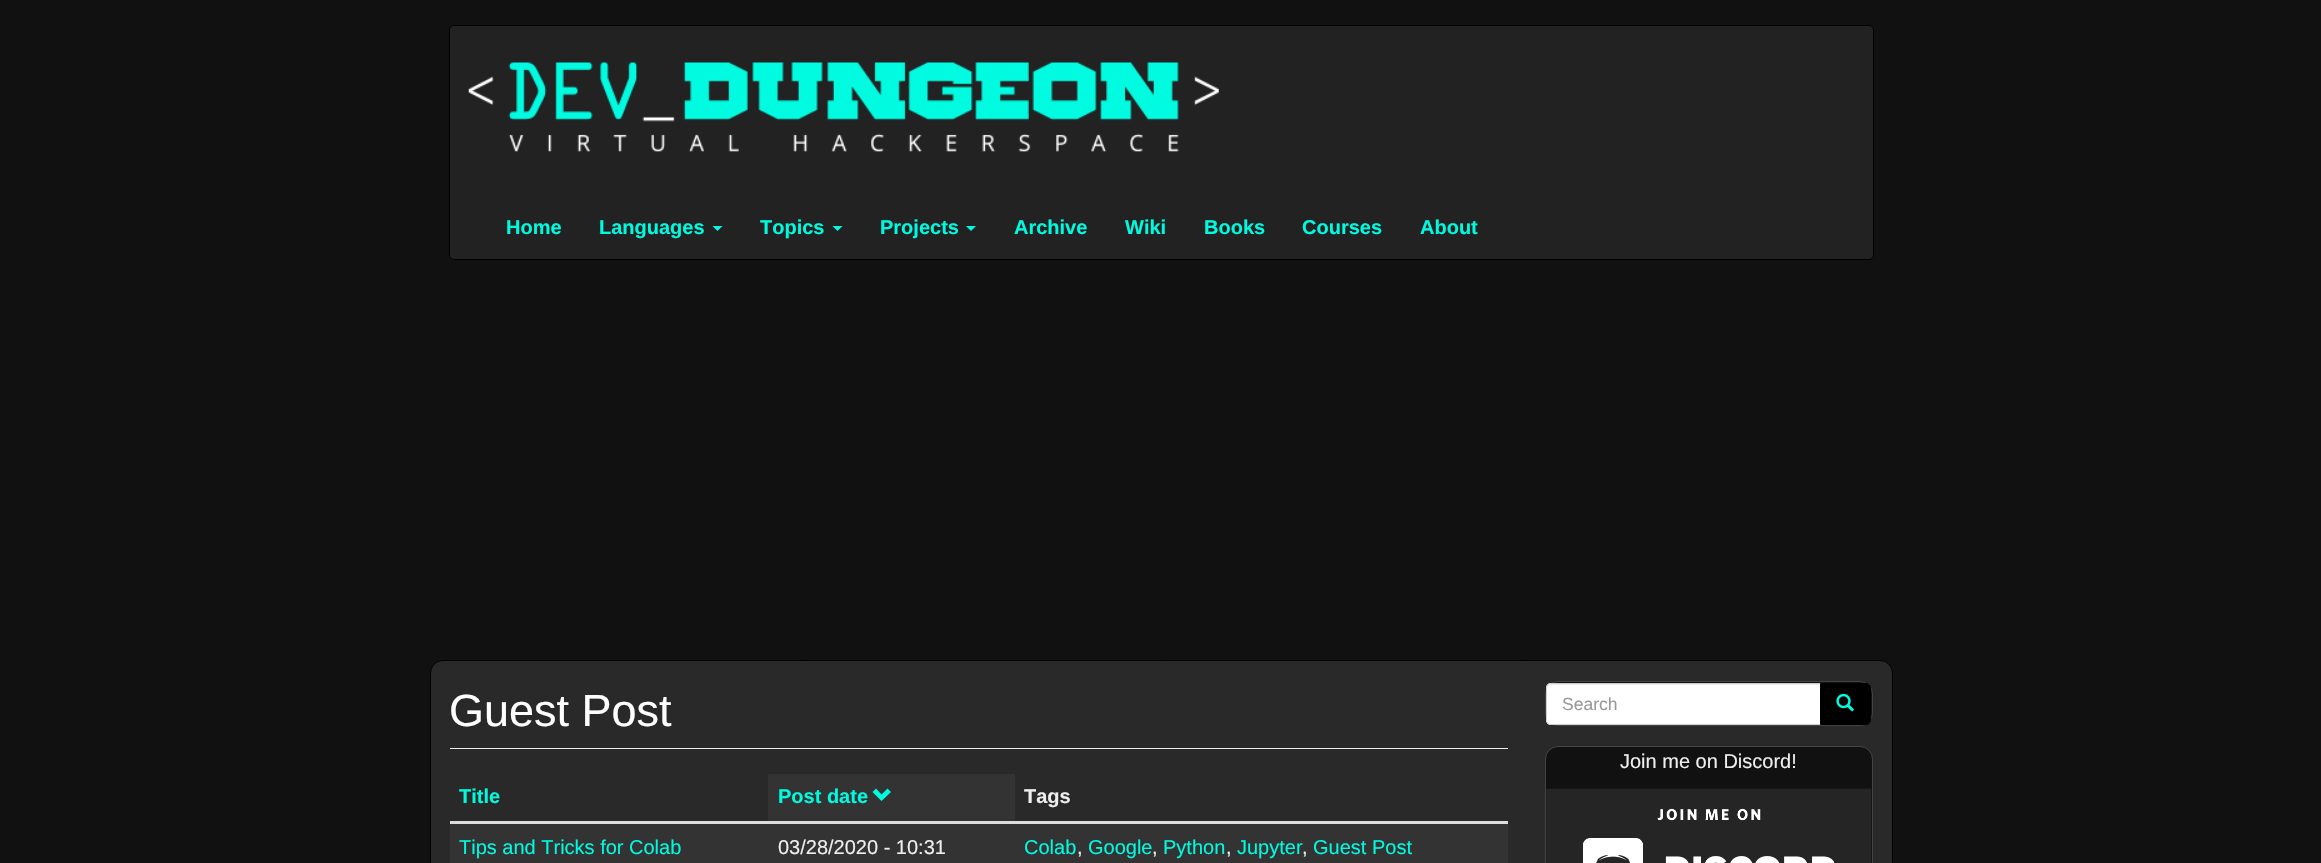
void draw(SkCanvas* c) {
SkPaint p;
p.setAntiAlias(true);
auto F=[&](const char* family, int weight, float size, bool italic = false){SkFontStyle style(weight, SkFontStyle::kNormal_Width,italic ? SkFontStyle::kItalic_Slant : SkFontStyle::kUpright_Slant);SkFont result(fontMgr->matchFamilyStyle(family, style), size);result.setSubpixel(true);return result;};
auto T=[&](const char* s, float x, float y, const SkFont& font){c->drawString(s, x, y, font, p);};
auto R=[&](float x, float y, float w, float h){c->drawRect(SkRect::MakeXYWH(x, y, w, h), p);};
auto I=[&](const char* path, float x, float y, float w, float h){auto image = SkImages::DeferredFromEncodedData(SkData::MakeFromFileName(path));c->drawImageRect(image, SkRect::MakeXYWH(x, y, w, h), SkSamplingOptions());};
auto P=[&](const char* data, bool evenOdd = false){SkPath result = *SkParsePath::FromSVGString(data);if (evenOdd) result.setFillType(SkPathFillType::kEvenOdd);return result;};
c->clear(0xff111111);
p.setColor(0xff222222);
c->drawRoundRect(SkRect::MakeXYWH(449.5,25.5,1424,234),4.5,4.5,p);
p.setStroke(true);
p.setStrokeWidth(1);
p.setColor(0xff000000);
c->drawRoundRect(SkRect::MakeXYWH(449.5,25.5,1424,234),4.5,4.5,p);
I("1.png",468,62,751,90);
auto f1 = F("Liberation Sans",700,20);
p.setStroke(false);
p.setColor(0xff00fae0);
T("Home",506,234,f1);
T("Languages",599,234,f1);
c->drawPath(P("M712.5 226h10l-5 5z"),p);
T("Topics",760,234,f1);
c->drawPath(P("M832.5 226h10l-5 5z"),p);
T("Projects",880,234,f1);
c->drawPath(P("M966 226h10l-5 5z"),p);
T("Archive",1014,234,f1);
T("Wiki",1125,234,f1);
T("Books",1204,234,f1);
T("Courses",1302,234,f1);
T("About",1420,234,f1);
p.setColor(0xff292929);
c->drawRoundRect(SkRect::MakeXYWH(430.5,660.5,1462,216),12.5,12.5,p);
p.setStroke(true);
p.setColor(0xff000000);
c->drawRoundRect(SkRect::MakeXYWH(430.5,660.5,1462,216),12.5,12.5,p);
p.setStroke(false);
p.setColor(0xffeeeeee);
R(450,748,1058,1);
auto f2 = F("Liberation Sans",400,45);
p.setColor(0xffffffff);
T("Guest Post",449,726,f2);
p.setColor(0xff00fae0);
T("Title",459,803,f1);
p.setColor(0xff333333);
R(768,774,247,47);
p.setColor(0xff00fae0);
T("Post date",778,803,f1);
c->drawPath(P("M891 792l-9.5 9l-9-9l3.5-3.5l5.5 6l6-6z"),p);
p.setColor(0xffdddddd);
R(450,821,1058,3);
p.setColor(0xffeeeeee);
T("Tags",1024,803,f1);
p.setColor(0xff333333);
R(450,824,1058,39);
auto f3 = F("Liberation Sans",400,20);
p.setColor(0xff00fae0);
T("Tips and Tricks for Colab",459,854,f3);
p.setColor(0xffeeeeee);
T("03/28/2020 - 10:31",778,854,f3);
p.setColor(0xff00fae0);
T("Colab",1024,854,f3);
p.setColor(0xffeeeeee);
T(",",1077,854,f3);
p.setColor(0xff00fae0);
T("Google",1088,854,f3);
p.setColor(0xffeeeeee);
T(",",1152,854,f3);
p.setColor(0xff00fae0);
T("Python",1163,854,f3);
p.setColor(0xffeeeeee);
T(",",1226,854,f3);
p.setColor(0xff00fae0);
T("Jupyter",1237,854,f3);
p.setColor(0xffeeeeee);
T(",",1302,854,f3);
p.setColor(0xff00fae0);
T("Guest Post",1313,854,f3);
p.setColor(0xff111111);
c->drawRoundRect(SkRect::MakeXYWH(1545.5,681.5,327,44),12.5,12.5,p);
p.setStroke(true);
p.setColor(0xff444444);
c->drawRoundRect(SkRect::MakeXYWH(1545.5,681.5,327,44),12.5,12.5,p);
p.setStroke(false);
p.setColor(0xffffffff);
c->drawPath(P("M1551 683h270v42h-270c-3 0-5-2-5-5v-32c0-3 2-5 5-5z"),p);
p.setColor(0xffececec);
c->drawPath(P("M1551 685h269v-1h-268c-3 0-4 2-4 5c0-2 1-4 3-4z"),p);
p.setStroke(true);
p.setColor(0xffcccccc);
c->drawPath(P("M1551 683.5h269.5v41h-269.5c-2.5 0-4.5-2-4.5-4.5v-32c0-2.5 2-4.5 4.5-4.5z"),p);
auto f4 = F("Liberation Sans",400,17.5);
p.setStroke(false);
p.setColor(0xff999999);
T("Search",1562,710,f4);
p.setColor(0xff000000);
c->drawPath(P("M1820.5 683.5h45.5c2.5 0 4.5 2 4.5 4.5v32c0 2.5-2 4.5-4.5 4.5h-45.5z"),p);
p.setStroke(true);
c->drawPath(P("M1820.5 683.5h45.5c2.5 0 4.5 2 4.5 4.5v32c0 2.5-2 4.5-4.5 4.5h-45.5z"),p);
I("2.png",1836,693,18,19);
p.setStroke(false);
p.setColor(0xff111111);
c->drawRoundRect(SkRect::MakeXYWH(1545.5,746.5,327,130),12.5,12.5,p);
p.setStroke(true);
p.setColor(0xff444444);
c->drawRoundRect(SkRect::MakeXYWH(1545.5,746.5,327,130),12.5,12.5,p);
p.setStroke(false);
p.setColor(0xffeeeeee);
T("Join me on Discord!",1620,768,f3);
I("3.png",1546,788,326,75);
}
